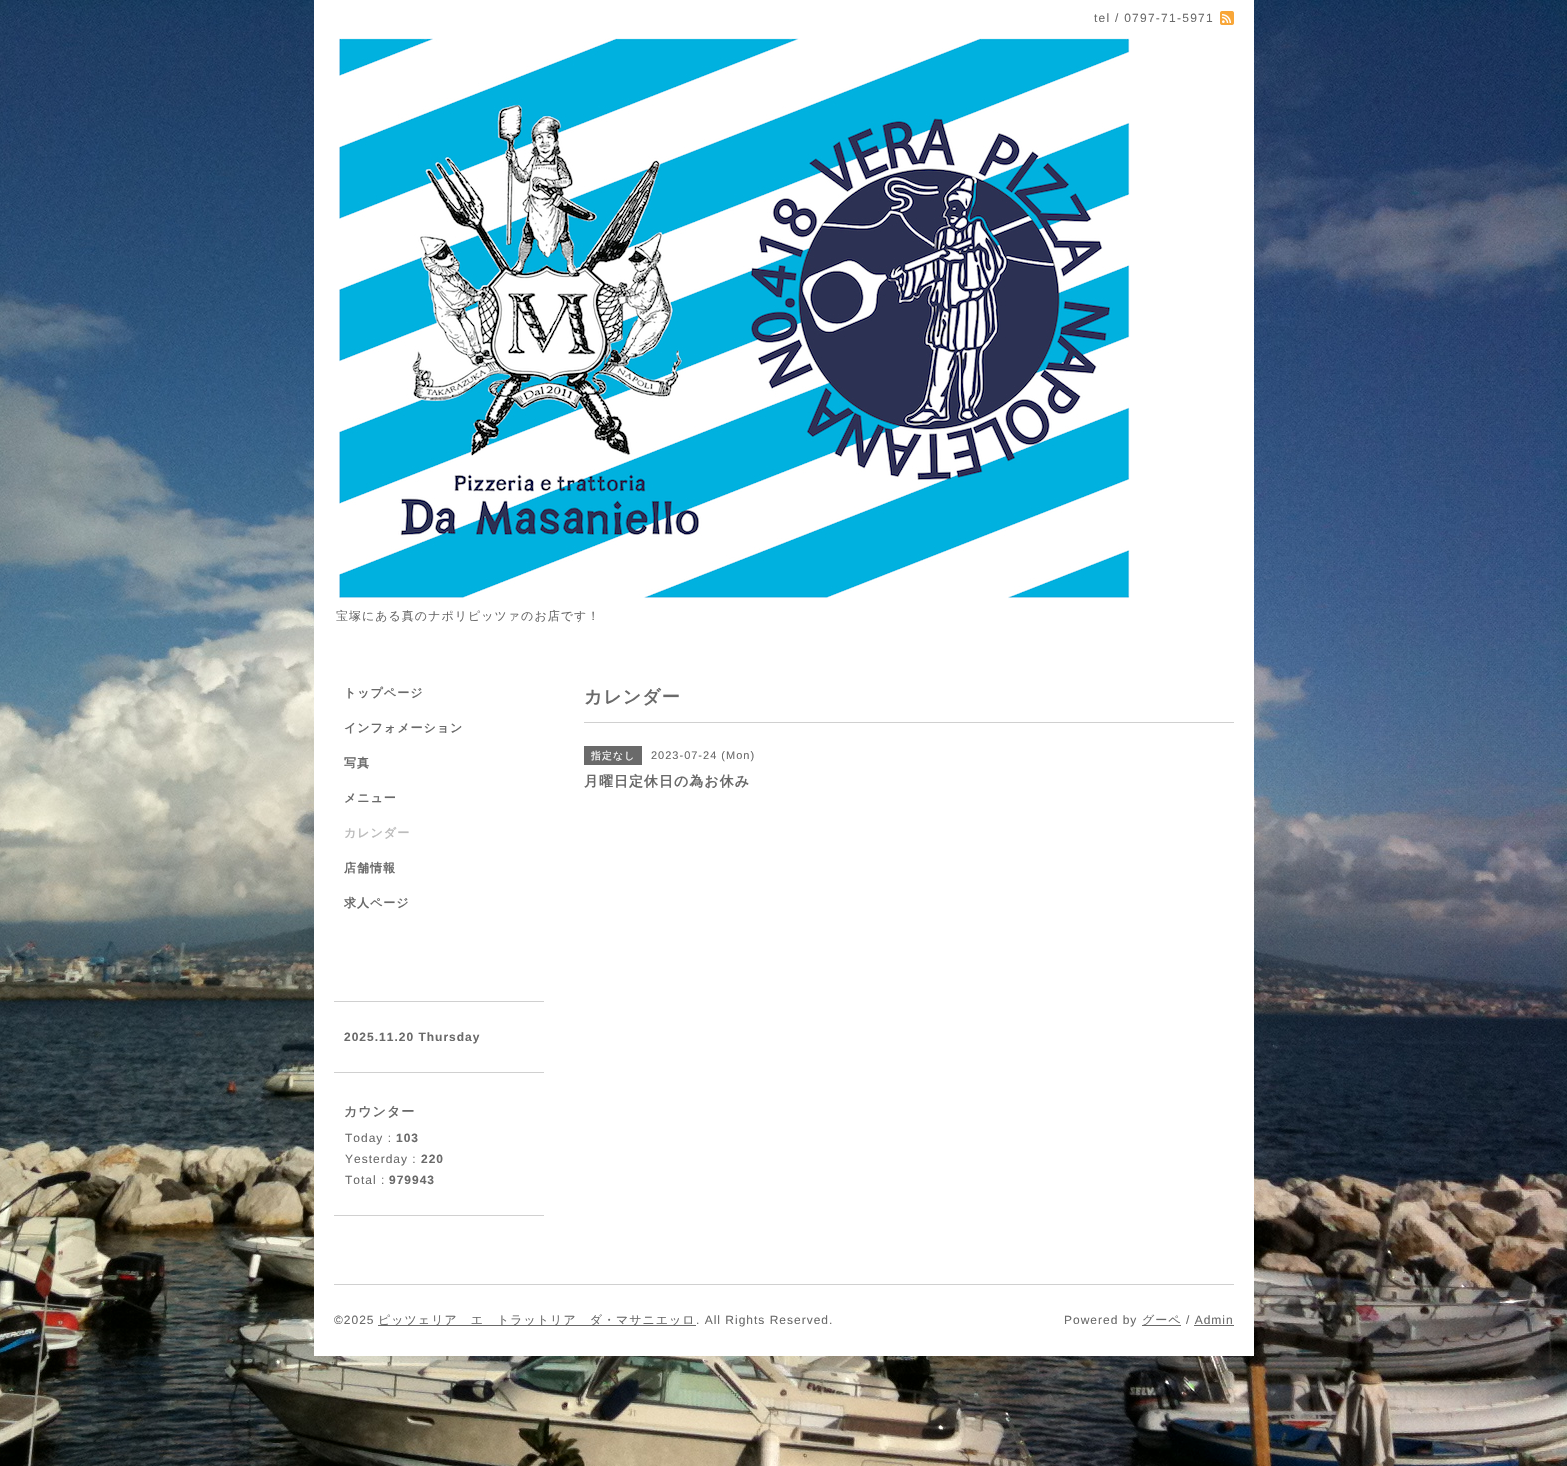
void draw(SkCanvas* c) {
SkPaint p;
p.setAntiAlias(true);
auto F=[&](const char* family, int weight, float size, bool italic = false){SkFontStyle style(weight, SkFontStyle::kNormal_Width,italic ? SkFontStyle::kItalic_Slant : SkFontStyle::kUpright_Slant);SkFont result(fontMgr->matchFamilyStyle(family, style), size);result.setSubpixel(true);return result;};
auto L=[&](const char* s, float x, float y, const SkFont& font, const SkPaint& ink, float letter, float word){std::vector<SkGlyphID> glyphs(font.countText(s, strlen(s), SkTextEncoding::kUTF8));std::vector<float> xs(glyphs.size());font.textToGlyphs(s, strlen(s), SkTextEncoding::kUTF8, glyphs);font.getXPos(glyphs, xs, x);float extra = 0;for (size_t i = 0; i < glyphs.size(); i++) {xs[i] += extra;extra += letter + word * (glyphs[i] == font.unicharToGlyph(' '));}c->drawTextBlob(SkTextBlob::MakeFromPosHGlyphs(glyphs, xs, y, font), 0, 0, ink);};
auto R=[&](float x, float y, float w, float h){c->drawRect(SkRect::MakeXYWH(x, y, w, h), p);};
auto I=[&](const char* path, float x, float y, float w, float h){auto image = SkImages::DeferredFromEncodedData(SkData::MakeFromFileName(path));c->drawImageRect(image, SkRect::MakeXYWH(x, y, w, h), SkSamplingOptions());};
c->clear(0xffffffff);
I("1.png",0,0,1567,1466);
p.setColor(0xffffffff);
R(314,0,940,1356);
auto f1 = F("Liberation Sans",400,12);
p.setColor(0xff6a6a6a);
L("tel / 0797-71-5971",1094,22,f1,p,1.25,0);
I("2.png",1220,11,14,14);
I("3.png",339,38,791,561);
auto f2 = F("WenQuanYi Zen Hei",500,12);
L("宝塚にある真のナポリピッツァのお店です！",336,620,f2,p,1,0);
auto f3 = F("WenQuanYi Zen Hei",700,12);
L("トップページ",344,697,f3,p,1,0);
L("インフォメーション",344,732,f3,p,1,0);
L("写真",344,767,f3,p,1,0);
L("メニュー",344,802,f3,p,1,0);
p.setColor(0xffbcbcbc);
L("カレンダー",344,837,f3,p,1,0);
p.setColor(0xff6a6a6a);
L("店舗情報",344,872,f3,p,1,0);
L("求人ページ",344,907,f3,p,1,0);
auto f4 = F("WenQuanYi Zen Hei",700,18);
L("カレンダー",584,703,f4,p,1,0);
p.setColor(0xffd0d0d0);
R(584,722,650,1);
p.setColor(0xff6a6a6a);
R(584,746,58,19);
auto f5 = F("WenQuanYi Zen Hei",500,10);
p.setColor(0xffffffff);
L("指定なし",591,759,f5,p,1,0);
auto f6 = F("Liberation Sans",400,11);
p.setColor(0xff6a6a6a);
L("2023-07-24 (Mon)",651,759,f6,p,1,0);
auto f7 = F("WenQuanYi Zen Hei",700,14);
L("月曜日定休日の為お休み",584,786,f7,p,1,0);
p.setColor(0xffd0d0d0);
R(334,1001,210,1);
R(334,1072,210,1);
auto f8 = F("Liberation Sans",700,12);
p.setColor(0xff6a6a6a);
L("2025.11.20 Thursday",344,1041,f8,p,1,0);
p.setColor(0xffd0d0d0);
R(334,1215,210,1);
auto f9 = F("WenQuanYi Zen Hei",700,13);
p.setColor(0xff6a6a6a);
L("カウンター",344,1116,f9,p,1,0);
L("Today :",345,1142,f1,p,1,0);
L("103",396,1142,f8,p,1,0);
L("Yesterday :",345,1163,f1,p,1,0);
L("220",421,1163,f8,p,1,0);
L("Total :",345,1184,f1,p,1,0);
L("979943",389,1184,f8,p,1,0);
p.setColor(0xffd0d0d0);
R(334,1284,900,1);
p.setColor(0xff6a6a6a);
L("©2025",334,1324,f1,p,1,0);
R(378,1325,318,1);
L("ピッツェリア　エ　トラットリア　ダ・マサニエッロ",378,1324,f2,p,1,0);
L(". All Rights Reserved.",696,1324,f1,p,1,0);
L("Powered by",1064,1324,f1,p,1,0);
R(1142,1325,39,1);
L("グーペ",1142,1324,f2,p,1,0);
L("/ Admin",1186,1324,f1,p,1,0);
R(1194,1325,40,1);
}
